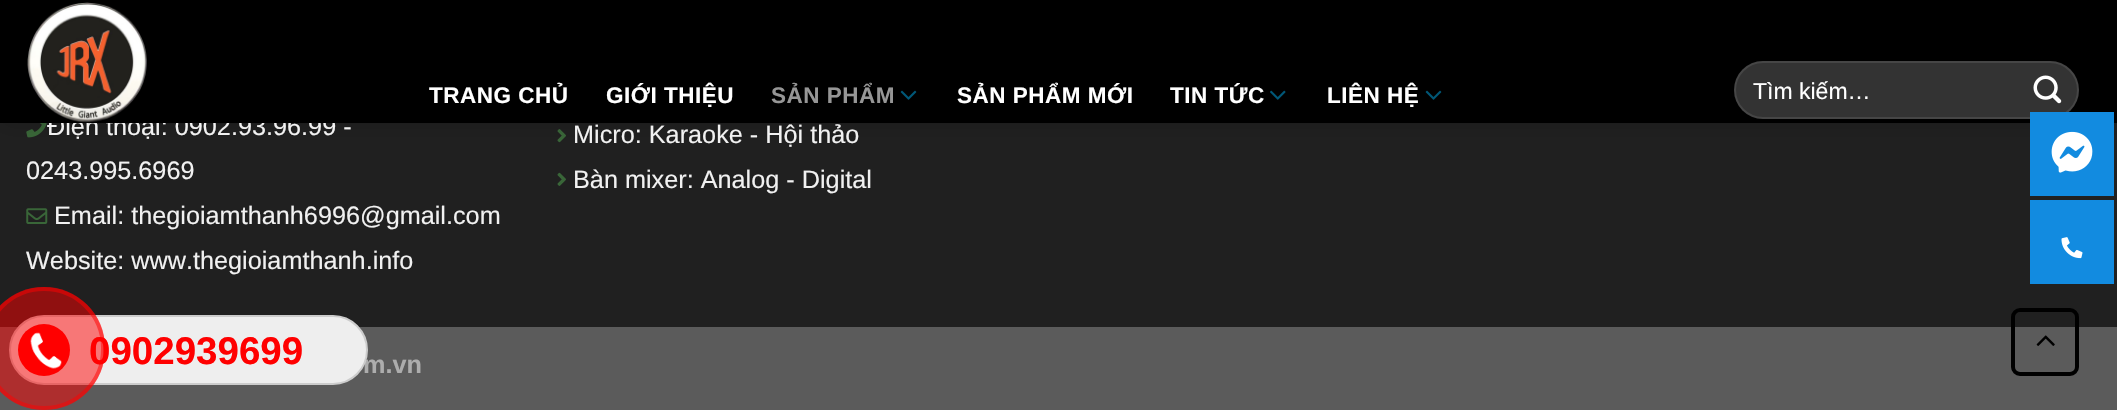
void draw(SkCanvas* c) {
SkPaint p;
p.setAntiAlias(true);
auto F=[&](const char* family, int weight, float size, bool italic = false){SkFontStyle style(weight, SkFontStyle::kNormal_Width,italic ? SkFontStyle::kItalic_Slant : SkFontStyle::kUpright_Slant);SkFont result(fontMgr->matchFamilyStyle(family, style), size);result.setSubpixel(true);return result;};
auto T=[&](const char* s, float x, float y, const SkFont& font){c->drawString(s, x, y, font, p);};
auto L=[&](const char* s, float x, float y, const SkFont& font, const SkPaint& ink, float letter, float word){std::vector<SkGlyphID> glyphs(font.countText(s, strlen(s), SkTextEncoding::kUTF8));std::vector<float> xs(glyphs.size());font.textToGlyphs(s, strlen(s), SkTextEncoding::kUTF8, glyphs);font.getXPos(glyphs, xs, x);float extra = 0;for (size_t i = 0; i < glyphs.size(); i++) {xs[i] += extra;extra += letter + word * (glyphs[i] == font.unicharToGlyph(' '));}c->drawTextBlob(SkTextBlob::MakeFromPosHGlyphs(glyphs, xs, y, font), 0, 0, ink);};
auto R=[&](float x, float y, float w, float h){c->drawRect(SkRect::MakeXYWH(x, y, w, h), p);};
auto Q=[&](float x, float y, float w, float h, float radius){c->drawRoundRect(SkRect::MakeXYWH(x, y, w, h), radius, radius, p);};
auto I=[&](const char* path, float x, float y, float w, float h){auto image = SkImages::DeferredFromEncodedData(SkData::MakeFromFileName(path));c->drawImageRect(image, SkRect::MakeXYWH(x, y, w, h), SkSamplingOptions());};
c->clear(0xff5b5b5b);
p.setColor(0xff202020);
R(0,123,2117,204);
I("5.png",26,123,21,15);
I("7.png",557,129,9,14);
p.setColor(0x26000000);
p.setMaskFilter(SkMaskFilter::MakeBlur(kNormal_SkBlurStyle, 9));
c->drawRect(SkRect::MakeXYWH(2,2,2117,122),p);
p.setMaskFilter(nullptr);
auto f1 = F("Liberation Sans",400,25.25);
p.setColor(0xfff1f1f1);
T("Điện thoại: 0902.93.96.99 -",47,135,f1);
p.setColor(0xff000000);
R(0,0,2117,123);
I("1.png",27,2,120,121);
auto f2 = F("Liberation Sans",700,22.5);
p.setColor(0xffffffff);
L("TRANG CHỦ",429,103,f2,p,.5,0);
L("GIỚI THIỆU",606,103,f2,p,.5,0);
p.setColor(0xff969696);
L("SẢN PHẨM",771,103,f2,p,.5,0);
I("2.png",900,90,17,10);
p.setColor(0xffffffff);
L("SẢN PHẨM MỚI",957,103,f2,p,.5,0);
L("TIN TỨC",1170,103,f2,p,.5,0);
I("3.png",1270,90,16,10);
L("LIÊN HỆ",1327,103,f2,p,.5,0);
I("2.png",1425,90,17,10);
p.setColor(0xff333333);
Q(1734,61,345,58,29);
p.setStroke(true);
p.setStrokeWidth(2);
p.setColor(0x17ffffff);
c->drawRoundRect(SkRect::MakeXYWH(1735,62,343,56),28,28,p);
auto f3 = F("Liberation Sans",400,23);
p.setStroke(false);
p.setColor(0xffffffff);
T("Tìm kiếm…",1753,99,f3);
I("4.png",2033,75,29,29);
p.setColor(0xfff1f1f1);
T("0243.995.6969",26,179,f1);
I("6.png",26,208,22,16);
T("Email: thegioiamthanh6996@gmail.com",54,224,f1);
T("Website: www.thegioiamthanh.info",26,269,f1);
T("Micro: Karaoke - Hội thảo",573,143,f1);
I("8.png",557,172,9,14);
T("Bàn mixer: Analog - Digital",573,188,f1);
auto f4 = F("Liberation Sans",700,25.25);
p.setColor(0xffadadad);
T("m.vn",363,373,f4);
p.setStroke(true);
p.setStrokeWidth(4);
p.setColor(0xff000000);
c->drawRoundRect(SkRect::MakeXYWH(2013,310,64,64),7,7,p);
I("9.png",2036,335,19,11);
p.setStroke(false);
p.setColor(0xff128be0);
R(2030,112,84,84);
I("10.png",2051,131,42,42);
R(2030,200,84,84);
I("11.png",2061,237,22,22);
p.setColor(0xffeeeeee);
c->drawRoundRect(SkRect::MakeXYWH(10,316,357,68),34,34,p);
p.setStroke(true);
p.setStrokeWidth(2);
p.setColor(0xffcccccc);
c->drawRoundRect(SkRect::MakeXYWH(10,316,357,68),34,34,p);
auto f5 = F("Liberation Sans",700,38.5);
p.setStroke(false);
p.setColor(0xffff0000);
T("0902939699",89,364,f5);
p.setColor(0x80ff0000);
Q(-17,287,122,123,61);
p.setStroke(true);
p.setStrokeWidth(4);
c->drawRoundRect(SkRect::MakeXYWH(-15,289,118,119),59,59,p);
p.setStroke(false);
p.setColor(0xffff0000);
c->drawCircle(44,350,26,p);
I("12.png",30,332,32,37);
}
